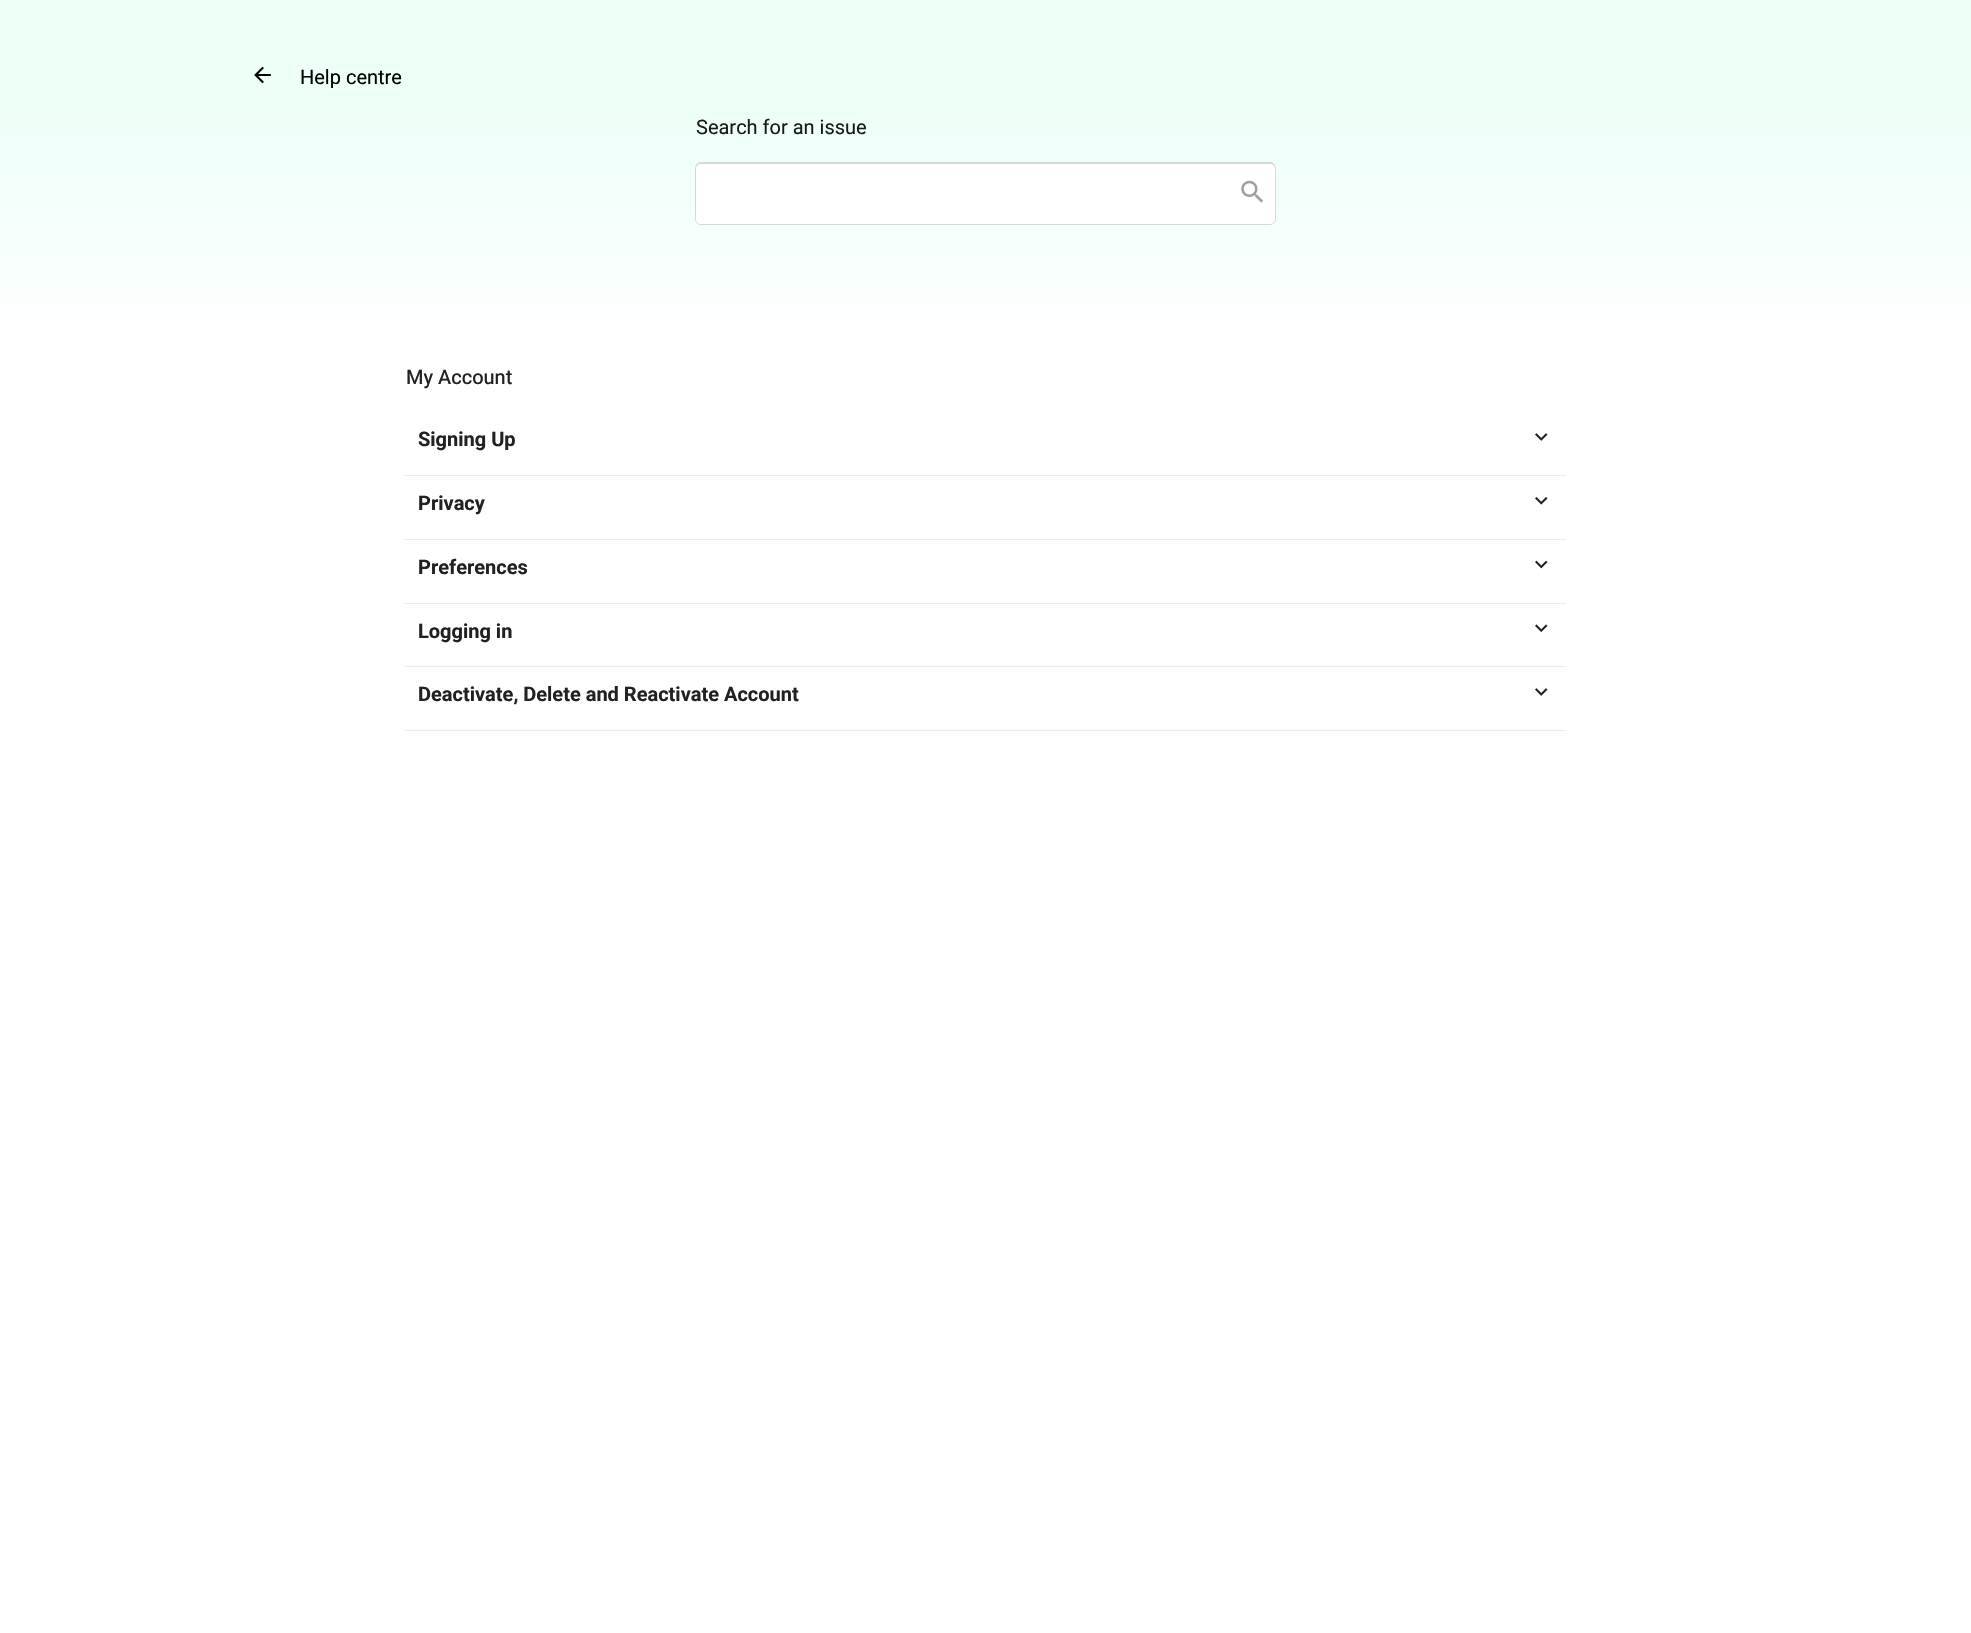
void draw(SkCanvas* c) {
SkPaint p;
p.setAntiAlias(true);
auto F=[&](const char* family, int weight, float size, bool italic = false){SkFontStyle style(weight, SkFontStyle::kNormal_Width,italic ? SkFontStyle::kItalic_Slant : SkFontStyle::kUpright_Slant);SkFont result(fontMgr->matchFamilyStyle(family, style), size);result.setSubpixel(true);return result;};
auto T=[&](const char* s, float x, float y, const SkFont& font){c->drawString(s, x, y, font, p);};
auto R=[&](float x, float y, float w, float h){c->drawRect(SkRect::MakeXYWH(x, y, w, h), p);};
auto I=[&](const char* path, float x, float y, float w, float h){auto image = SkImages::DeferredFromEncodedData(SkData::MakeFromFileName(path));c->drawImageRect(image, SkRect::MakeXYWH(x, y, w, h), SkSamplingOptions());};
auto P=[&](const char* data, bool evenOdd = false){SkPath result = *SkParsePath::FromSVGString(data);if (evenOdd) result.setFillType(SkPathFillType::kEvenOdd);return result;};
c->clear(0xffffffff);
p.setColor(0xffeefff8);
R(0,0,1971,113);
I("1.png",254,66,17,18);
auto f1 = F("Roboto",400,20);
p.setColor(0xff000000);
T("Help centre",300,84,f1);
{
const SkColor colors[] = {0xffeefff8,0xffffffff};
const float stops[] = {0,1};
const SkPoint ends[] = {{986,112}, {986,363}};
p.setShader(SkGradientShader::MakeLinear(ends, colors, stops, 2, SkTileMode::kClamp));
p.setAlpha(255);
}
R(0,113,1971,213);
p.setShader(nullptr);
p.setColor(0xff191919);
T("Search for an issue",696,134,f1);
p.setColor(0xffffffff);
c->drawPath(P("M701 163h529v62h-529c-3.5 0-6-2.5-6-6v-50c0-3.5 2.5-6 6-6z"),p);
p.setColor(0xffd8d8d8);
c->drawPath(P("M701 162h529v63h-529c-3 0-6-3-6-6v-50c0-4 3-7 6-7zm0 2h529v60h-529c-3 0-5-2-5-5v-50c0-3 2-5 5-5z",true),p);
p.setColor(0xffffffff);
c->drawPath(P("M1230 163h40c3.5 0 6 2.5 6 6v50c0 3.5-2.5 6-6 6h-40z"),p);
p.setColor(0xffd8d8d8);
c->drawPath(P("M1230 162h40c3 0 6 3 6 7v50c0 3-3 6-6 6h-40zm0 2h40c3 0 5 2 5 5v50c0 3-2 5-5 5h-40z",true),p);
I("2.png",1241,180,22,23);
auto f2 = F("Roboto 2",400,20);
p.setColor(0xff212121);
T("My Account",406,384,f2);
p.setColor(0xffebebeb);
R(405,475,1161,1);
auto f3 = F("Roboto",700,20);
p.setColor(0xff212121);
T("Signing Up",418,446,f3);
I("3.png",1535,433,13,8);
p.setColor(0xffebebeb);
R(405,539,1161,1);
p.setColor(0xff212121);
T("Privacy",418,510,f3);
I("4.png",1535,497,13,8);
p.setColor(0xffebebeb);
R(405,603,1161,1);
p.setColor(0xff212121);
T("Preferences",418,574,f3);
I("5.png",1535,560,13,9);
p.setColor(0xffebebeb);
R(405,666,1161,1);
p.setColor(0xff212121);
T("Logging in",418,638,f3);
I("6.png",1535,624,13,8);
p.setColor(0xffebebeb);
R(405,730,1161,1);
p.setColor(0xff212121);
T("Deactivate, Delete and Reactivate Account",418,701,f3);
I("3.png",1535,688,13,8);
}
